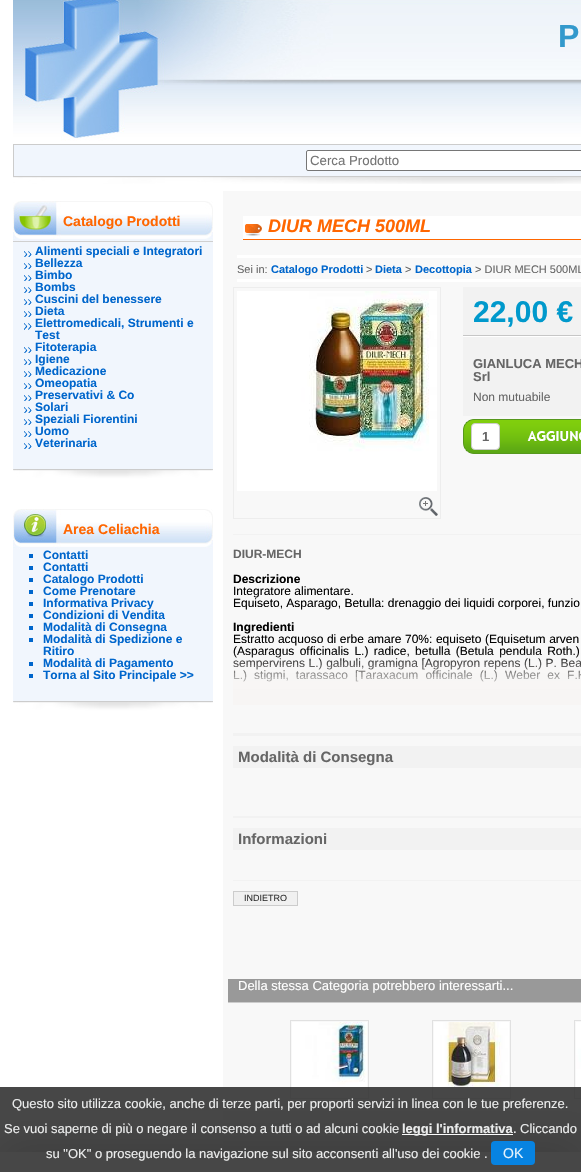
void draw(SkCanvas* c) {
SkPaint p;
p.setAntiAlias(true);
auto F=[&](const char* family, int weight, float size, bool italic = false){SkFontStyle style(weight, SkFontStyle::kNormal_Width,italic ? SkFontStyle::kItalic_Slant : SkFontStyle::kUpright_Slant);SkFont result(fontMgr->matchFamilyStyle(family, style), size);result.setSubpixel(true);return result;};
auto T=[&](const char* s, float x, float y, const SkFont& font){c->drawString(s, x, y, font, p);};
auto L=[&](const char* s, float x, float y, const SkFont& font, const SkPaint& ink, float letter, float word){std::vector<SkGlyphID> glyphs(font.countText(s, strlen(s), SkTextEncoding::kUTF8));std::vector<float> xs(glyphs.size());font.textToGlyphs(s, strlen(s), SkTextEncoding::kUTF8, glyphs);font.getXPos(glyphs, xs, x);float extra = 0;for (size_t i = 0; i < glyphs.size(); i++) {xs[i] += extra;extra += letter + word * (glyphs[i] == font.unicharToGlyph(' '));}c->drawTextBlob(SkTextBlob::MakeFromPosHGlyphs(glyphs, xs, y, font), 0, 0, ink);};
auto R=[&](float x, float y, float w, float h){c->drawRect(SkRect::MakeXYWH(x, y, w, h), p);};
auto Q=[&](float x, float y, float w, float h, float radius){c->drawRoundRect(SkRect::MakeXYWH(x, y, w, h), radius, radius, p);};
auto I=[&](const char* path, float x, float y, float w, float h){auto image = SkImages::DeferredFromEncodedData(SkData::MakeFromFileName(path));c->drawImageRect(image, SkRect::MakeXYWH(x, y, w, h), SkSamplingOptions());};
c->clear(0xffffffff);
I("1.png",13,0,568,141);
auto f1 = F("Liberation Sans",700,32);
p.setColor(0xff3399cc);
T("P",558,47,f1);
I("2.png",13,177,568,7);
p.setColor(0xfff1f6fd);
c->drawRect(SkRect::MakeXYWH(13.5,144.5,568,32),p);
p.setStroke(true);
p.setStrokeWidth(1);
p.setColor(0xffcccccc);
c->drawRect(SkRect::MakeXYWH(13.5,144.5,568,32),p);
p.setStroke(false);
p.setColor(0xffffffff);
c->drawRoundRect(SkRect::MakeXYWH(306.5,150.5,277,20),1.5,1.5,p);
p.setStroke(true);
p.setColor(0xff767676);
c->drawRoundRect(SkRect::MakeXYWH(306.5,150.5,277,20),1.5,1.5,p);
auto f2 = F("Liberation Sans",400,13.25);
p.setStroke(false);
p.setColor(0xff757575);
T("Cerca Prodotto",310,165,f2);
I("3.png",13,201,200,40);
auto f3 = F("Liberation Sans",700,14);
p.setColor(0xffff6600);
T("Catalogo Prodotti",63,226,f3);
p.setColor(0xfff1f6fd);
R(13,242,200,227);
I("4.png",13,469,200,10);
p.setColor(0xffd0d0d0);
R(13,241,200,1);
I("5.png",24,251,8,6);
auto f4 = F("Liberation Sans",700,12);
p.setColor(0xff0066cc);
T("Alimenti speciali e Integratori",35,255,f4);
I("5.png",24,263,8,6);
T("Bellezza",35,267,f4);
I("5.png",24,275,8,6);
T("Bimbo",35,279,f4);
I("5.png",24,287,8,6);
T("Bombs",35,291,f4);
I("5.png",24,299,8,6);
T("Cuscini del benessere",35,303,f4);
I("5.png",24,311,8,6);
T("Dieta",35,315,f4);
I("6.png",24,323,8,7);
T("Elettromedicali, Strumenti e",35,327,f4);
T("Test",35,339,f4);
I("5.png",24,347,8,6);
T("Fitoterapia",35,351,f4);
I("5.png",24,359,8,6);
T("Igiene",35,363,f4);
I("5.png",24,371,8,6);
T("Medicazione",35,375,f4);
I("5.png",24,383,8,6);
T("Omeopatia",35,387,f4);
I("5.png",24,395,8,6);
T("Preservativi & Co",35,399,f4);
I("5.png",24,407,8,6);
T("Solari",35,411,f4);
I("5.png",24,419,8,6);
T("Speziali Fiorentini",35,423,f4);
I("5.png",24,431,8,6);
T("Uomo",35,435,f4);
I("5.png",24,443,8,6);
T("Veterinaria",35,447,f4);
p.setColor(0xfff1f6fd);
R(13,549,200,152);
I("4.png",13,701,200,10);
I("7.png",13,509,200,40);
p.setColor(0xffff6600);
T("Area Celiachia",63,534,f3);
p.setColor(0xff0066cc);
R(29,554,4,4);
T("Contatti",43,559,f4);
R(29,566,4,4);
T("Contatti",43,571,f4);
R(29,578,4,4);
T("Catalogo Prodotti",43,583,f4);
R(29,590,4,4);
T("Come Prenotare",43,595,f4);
R(29,602,4,4);
T("Informativa Privacy",43,607,f4);
R(29,614,4,4);
T("Condizioni di Vendita",43,619,f4);
R(29,626,4,4);
T("Modalità di Consegna",43,631,f4);
R(29,638,4,4);
T("Modalità di Spedizione e",43,643,f4);
T("Ritiro",43,655,f4);
R(29,662,4,4);
T("Modalità di Pagamento",43,667,f4);
R(29,674,4,4);
T("Torna al Sito Principale >>",43,679,f4);
p.setColor(0xfff8f8f8);
R(223,191,358,981);
p.setColor(0xffffffff);
R(243,216,338,23);
I("8.png",245,224,17,12);
p.setColor(0xffff6600);
R(243,239,338,1);
auto f5 = F("Liberation Sans",700,18,true);
T("DIUR MECH 500ML",268,232,f5);
p.setColor(0xffffffff);
R(237,255,344,3);
R(237,279,344,3);
auto f6 = F("Liberation Sans",400,11);
p.setColor(0xff666666);
T("Sei in:",237,273,f6);
auto f7 = F("Liberation Sans",700,11);
p.setColor(0xff0066cc);
T("Catalogo Prodotti",271,273,f7);
p.setColor(0xff666666);
T(">",366,273,f6);
p.setColor(0xff0066cc);
T("Dieta",375,273,f7);
p.setColor(0xff666666);
T(">",405,273,f6);
p.setColor(0xff0066cc);
T("Decottopia",415,273,f7);
p.setColor(0xff666666);
T("> DIUR MECH 500ML",475,273,f6);
I("9.png",419,497,19,19);
p.setStroke(true);
p.setColor(0xffededed);
c->drawRect(SkRect::MakeXYWH(233.5,287.5,207,231),p);
I("10.png",237,291,200,200);
p.setStroke(false);
p.setColor(0xfff2f2f2);
R(463,287,118,129);
I("11.png",463,335,118,2);
auto f8 = F("Liberation Sans",700,30);
p.setColor(0xff0099cc);
T("22,00 €",473,322,f8);
auto f9 = F("Liberation Sans",700,13);
p.setColor(0xff666666);
T("GIANLUCA MECH",473,368,f9);
T("Srl",473,381,f9);
auto f10 = F("Liberation Sans",400,12);
T("Non mutuabile",473,401,f10);
I("12.png",463,419,57,35);
p.setColor(0xffffffff);
c->drawRoundRect(SkRect::MakeXYWH(471.5,423.5,28,26),3.5,3.5,p);
p.setStroke(true);
p.setColor(0xffcccccc);
c->drawRoundRect(SkRect::MakeXYWH(471.5,423.5,28,26),3.5,3.5,p);
p.setStroke(false);
p.setColor(0xff666666);
T("1",482,441,f9);
I("13.png",520,419,61,35);
p.setColor(0xfff2f2f2);
R(233,534,348,1);
p.setColor(0xff666666);
T("DIUR-MECH",233,558,f4);
p.setColor(0xff000000);
T("Descrizione",233,583,f4);
T("Integratore alimentare.",233,595,f10);
T("Equiseto, Asparago, Betulla: drenaggio dei liquidi corporei, funzio",233,607,f10);
T("Ingredienti",233,631,f4);
L("Estratto acquoso di erbe amare 70%: equiseto (Equisetum arven",233,643,f10,p,0,.25);
L("(Asparagus officinalis L.) radice, betulla (Betula pendula Roth.)",233,655,f10,p,0,2);
L("sempervirens L.) galbuli, gramigna [Agropyron repens (L.) P. Bea",233,667,f10,p,0,.25);
L("L.) stigmi, tarassaco [Taraxacum officinale (L.) Weber ex F.H",233,679,f10,p,0,3.75);
p.setColor(0x1af7f5f4);
R(233,653,348,4);
p.setColor(0x33f7f5f4);
R(233,657,348,4);
p.setColor(0x4df7f5f4);
R(233,661,348,4);
p.setColor(0x66f7f5f4);
R(233,665,348,4);
p.setColor(0x80f7f5f4);
R(233,669,348,4);
p.setColor(0x99f7f5f4);
R(233,673,348,4);
p.setColor(0xb3f7f5f4);
R(233,677,348,4);
p.setColor(0xccf7f5f4);
R(233,681,348,4);
p.setColor(0xe6f7f5f4);
R(233,685,348,4);
p.setColor(0xfff7f5f4);
R(233,689,348,16);
p.setColor(0xfff2f2f2);
R(233,733,348,3);
R(233,746,348,22);
auto f11 = F("Liberation Sans",700,15);
p.setColor(0xff666666);
T("Modalità di Consegna",238,762,f11);
p.setColor(0xfff2f2f2);
R(233,816,348,2);
R(233,828,348,22);
p.setColor(0xff666666);
T("Informazioni",238,844,f11);
p.setColor(0xfff2f2f2);
R(233,880,348,1);
p.setColor(0xfff0f0f0);
c->drawRect(SkRect::MakeXYWH(233.5,891.5,64,14),p);
p.setStroke(true);
p.setColor(0xffcccccc);
c->drawRect(SkRect::MakeXYWH(233.5,891.5,64,14),p);
auto f12 = F("Liberation Sans",400,9);
p.setStroke(false);
p.setColor(0xff333333);
T("INDIETRO",244,901,f12);
p.setColor(0xff999999);
R(228,979,353,23);
p.setColor(0xffcccccc);
R(228,1002,353,1);
auto f13 = F("Liberation Sans",400,13);
p.setColor(0xffffffff);
T("Della stessa Categoria potrebbero interessarti...",238,990,f13);
p.setStroke(true);
p.setColor(0xffe1e1e1);
c->drawRect(SkRect::MakeXYWH(290.5,1020.5,78,78),p);
I("14.png",292,1022,75,75);
c->drawRect(SkRect::MakeXYWH(432.5,1020.5,78,78),p);
I("15.png",434,1022,75,75);
c->drawRect(SkRect::MakeXYWH(574.5,1020.5,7,78),p);
I("16.png",576,1022,5,75);
c->save();
c->clipRect(SkRect::MakeXYWH(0,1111,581,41));
p.setStroke(false);
p.setColor(0xff444444);
p.setMaskFilter(SkMaskFilter::MakeBlur(kNormal_SkBlurStyle, 20));
c->drawRect(SkRect::MakeXYWH(0,1152,581,20),p);
p.setMaskFilter(nullptr);
c->restore();
p.setColor(0xe6333333);
R(0,1087,581,85);
p.setColor(0xffeceded);
T("Questo sito utilizza cookie, anche di terze parti, per proporti servizi in linea con le tue preferenze.",12,1108,f13);
T("Se vuoi saperne di più o negare il consenso a tutti o ad alcuni cookie",4,1133,f13);
p.setColor(0xfffbfbfb);
R(402,1134,111,1);
p.setColor(0xffeceded);
T("leggi l'informativa",402,1133,f9);
p.setColor(0xffffffff);
T(".",513,1133,f13);
p.setColor(0xffeceded);
T("Cliccando",520,1133,f13);
T("su \"OK\" o proseguendo la navigazione sul sito acconsenti all'uso dei cookie .",46,1158,f13);
p.setColor(0xe60089f2);
Q(491,1141,44,24,4);
auto f14 = F("Liberation Sans",400,14);
p.setColor(0xffe6f3fc);
T("OK",503,1158,f14);
}
